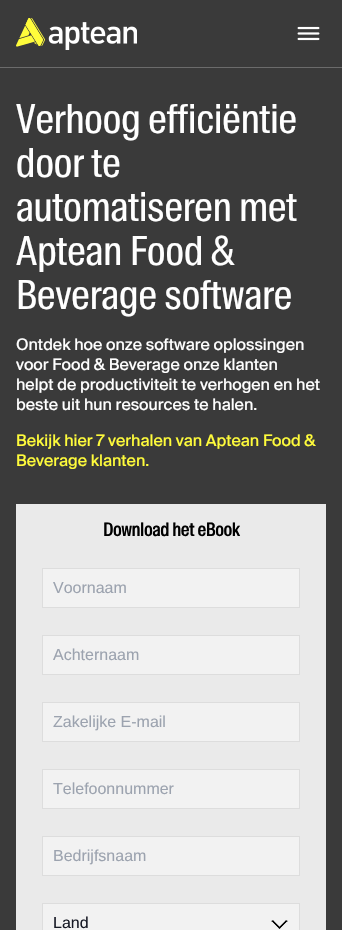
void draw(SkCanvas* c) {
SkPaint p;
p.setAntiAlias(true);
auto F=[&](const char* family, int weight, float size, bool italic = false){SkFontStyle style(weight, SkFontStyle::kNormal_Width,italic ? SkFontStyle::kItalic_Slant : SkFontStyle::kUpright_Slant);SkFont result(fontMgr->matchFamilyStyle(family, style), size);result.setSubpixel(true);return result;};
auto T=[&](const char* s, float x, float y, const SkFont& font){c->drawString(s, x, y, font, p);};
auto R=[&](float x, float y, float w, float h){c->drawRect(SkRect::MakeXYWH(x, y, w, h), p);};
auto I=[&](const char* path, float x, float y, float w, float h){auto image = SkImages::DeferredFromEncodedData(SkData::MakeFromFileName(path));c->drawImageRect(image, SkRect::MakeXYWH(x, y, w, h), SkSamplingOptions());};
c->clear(0xff3a3a3a);
p.setColor(0xff6b6b6b);
R(0,67,342,1);
I("1.png",16,18,121,32);
I("2.png",297,26,23,15);
auto f1 = F("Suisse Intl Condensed",400,40);
p.setColor(0xffffffff);
T("Verhoog efficiëntie",16,133,f1);
T("door te",16,177,f1);
T("automatiseren met",16,221,f1);
T("Aptean Food &",16,265,f1);
T("Beverage software",16,309,f1);
auto f2 = F("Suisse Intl",400,16);
T("Ontdek hoe onze software oplossingen",16,350,f2);
T("voor Food & Beverage onze klanten",16,370,f2);
T("helpt de productiviteit te verhogen en het",16,390,f2);
T("beste uit hun resources te halen.",16,410,f2);
p.setColor(0xfffffc3b);
T("Bekijk hier 7 verhalen van Aptean Food &",16,446,f2);
T("Beverage klanten.",16,466,f2);
p.setColor(0xffeaeaea);
R(16,504,310,426);
auto f3 = F("Suisse Intl Condensed",700,18);
p.setColor(0xff000000);
T("Download het eBook",103,536,f3);
p.setColor(0xfff2f2f2);
c->drawRect(SkRect::MakeXYWH(42.5,568.5,257,39),p);
p.setStroke(true);
p.setStrokeWidth(1);
p.setColor(0xffdddddd);
c->drawRect(SkRect::MakeXYWH(42.5,568.5,257,39),p);
auto f4 = F("Liberation Sans",400,16);
p.setStroke(false);
p.setColor(0xff9ca3af);
T("Voornaam",53,593,f4);
p.setColor(0xfff2f2f2);
c->drawRect(SkRect::MakeXYWH(42.5,635.5,257,39),p);
p.setStroke(true);
p.setColor(0xffdddddd);
c->drawRect(SkRect::MakeXYWH(42.5,635.5,257,39),p);
p.setStroke(false);
p.setColor(0xff9ca3af);
T("Achternaam",53,660,f4);
p.setColor(0xfff2f2f2);
c->drawRect(SkRect::MakeXYWH(42.5,702.5,257,39),p);
p.setStroke(true);
p.setColor(0xffdddddd);
c->drawRect(SkRect::MakeXYWH(42.5,702.5,257,39),p);
p.setStroke(false);
p.setColor(0xff9ca3af);
T("Zakelijke E-mail",53,727,f4);
p.setColor(0xfff2f2f2);
c->drawRect(SkRect::MakeXYWH(42.5,769.5,257,39),p);
p.setStroke(true);
p.setColor(0xffdddddd);
c->drawRect(SkRect::MakeXYWH(42.5,769.5,257,39),p);
p.setStroke(false);
p.setColor(0xff9ca3af);
T("Telefoonnummer",53,794,f4);
p.setColor(0xfff2f2f2);
c->drawRect(SkRect::MakeXYWH(42.5,836.5,257,39),p);
p.setStroke(true);
p.setColor(0xffdddddd);
c->drawRect(SkRect::MakeXYWH(42.5,836.5,257,39),p);
p.setStroke(false);
p.setColor(0xff9ca3af);
T("Bedrijfsnaam",53,861,f4);
p.setColor(0xfff2f2f2);
R(43,904,256,26);
I("3.png",271,920,17,9);
p.setStroke(true);
p.setColor(0xffdddddd);
c->drawRect(SkRect::MakeXYWH(42.5,903.5,257,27),p);
p.setStroke(false);
p.setColor(0xff171a25);
T("Land",53,928,f4);
}
